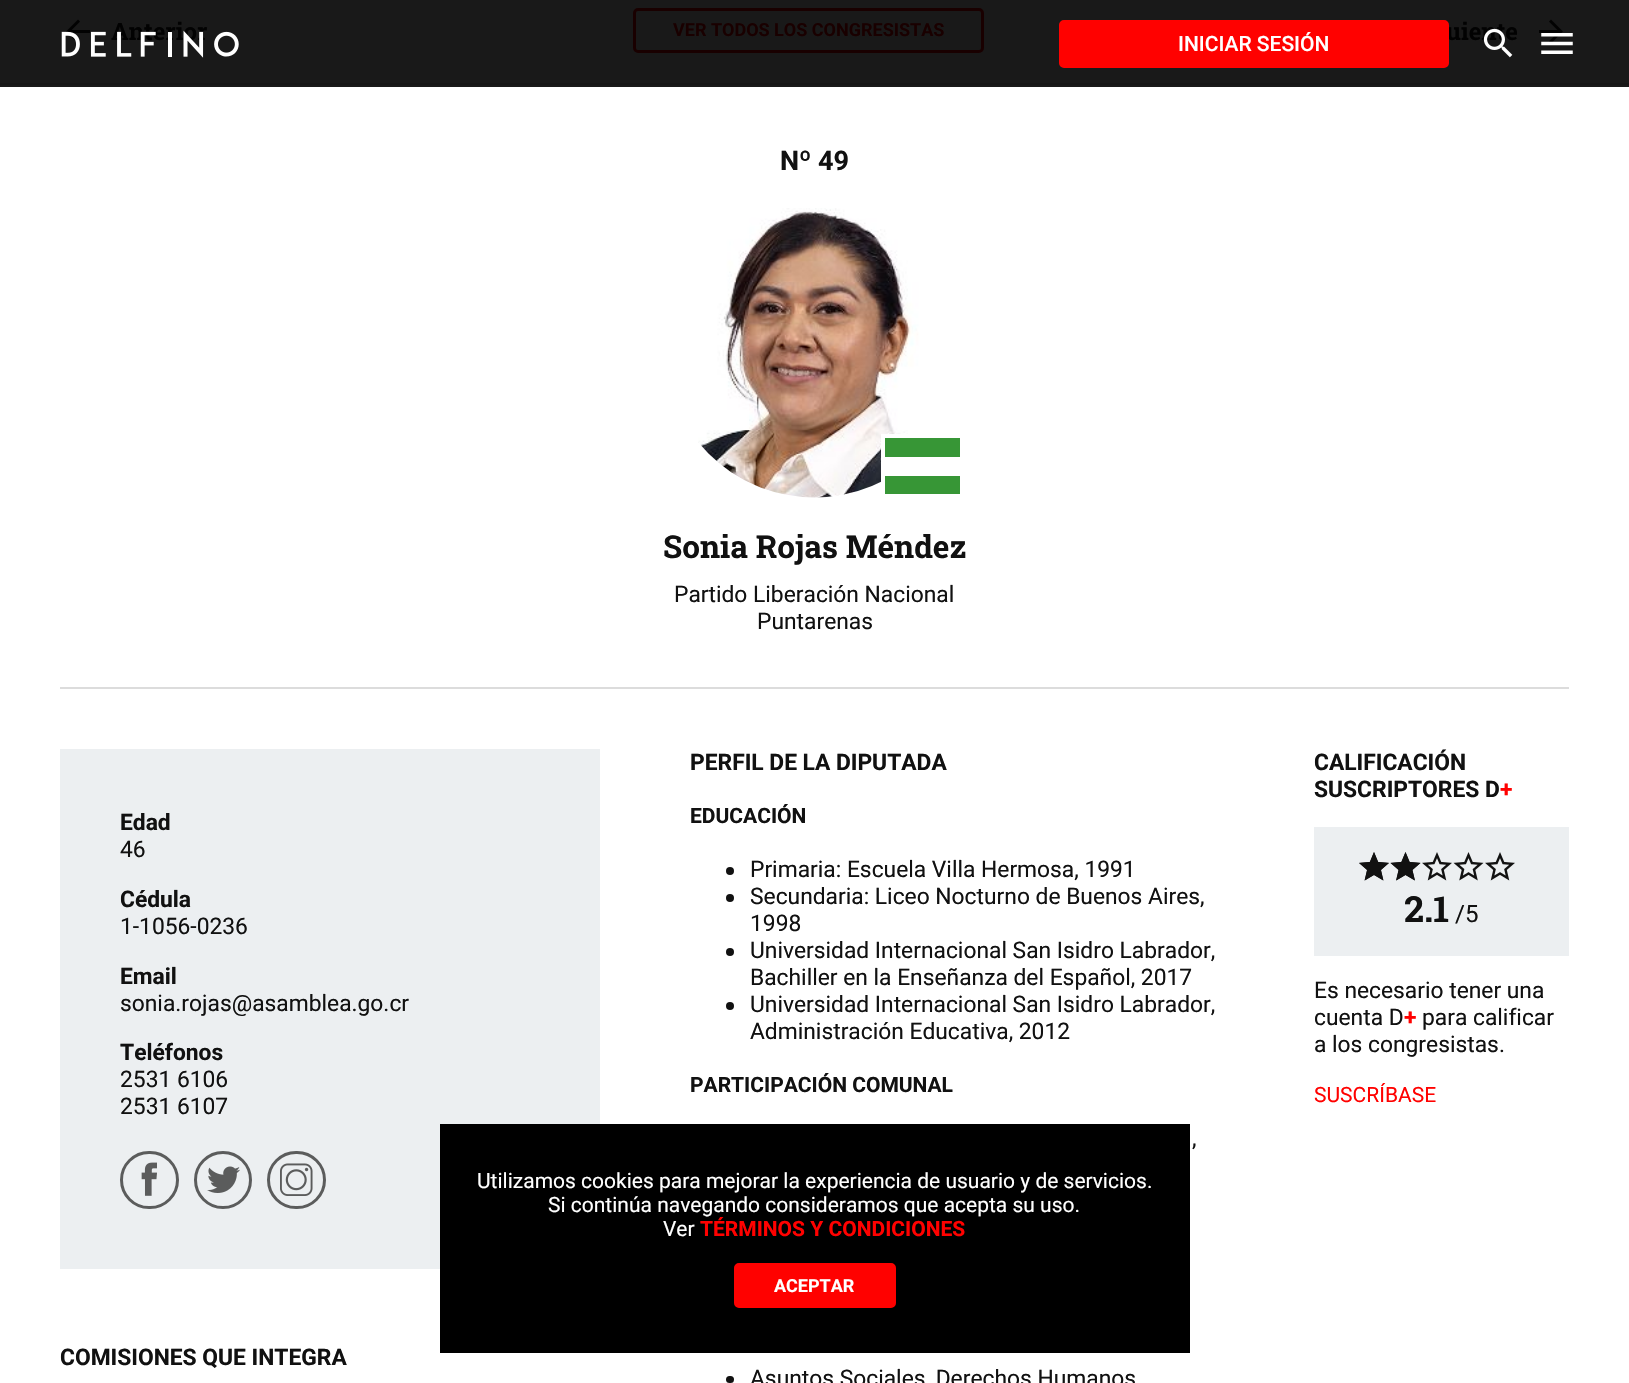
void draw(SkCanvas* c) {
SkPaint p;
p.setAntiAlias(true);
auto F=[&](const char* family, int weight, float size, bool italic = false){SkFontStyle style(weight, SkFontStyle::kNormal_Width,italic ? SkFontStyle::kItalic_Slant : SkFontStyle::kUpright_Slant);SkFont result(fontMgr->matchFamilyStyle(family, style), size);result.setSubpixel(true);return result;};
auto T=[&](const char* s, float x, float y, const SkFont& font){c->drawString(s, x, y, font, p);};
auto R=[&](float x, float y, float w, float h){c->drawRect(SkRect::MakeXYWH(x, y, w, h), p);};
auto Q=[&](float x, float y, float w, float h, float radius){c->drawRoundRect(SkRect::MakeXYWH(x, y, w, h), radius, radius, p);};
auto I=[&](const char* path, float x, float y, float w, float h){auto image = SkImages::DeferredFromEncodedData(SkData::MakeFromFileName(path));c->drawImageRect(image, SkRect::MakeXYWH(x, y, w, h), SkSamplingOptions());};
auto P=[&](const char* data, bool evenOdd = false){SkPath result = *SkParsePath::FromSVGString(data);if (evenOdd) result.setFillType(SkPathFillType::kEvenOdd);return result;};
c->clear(0xffffffff);
p.setColor(0xff191919);
R(0,0,1629,87);
p.setColor(0xff161616);
R(0,83,1629,2);
I("1.png",66,19,24,24);
auto f1 = F("Roboto Slab",700,24);
p.setColor(0xff020202);
T("Anterior",111,40,f1);
p.setStroke(true);
p.setStrokeWidth(3);
p.setColor(0xff190000);
c->drawRoundRect(SkRect::MakeXYWH(634.5,9.5,348,42),3.5,3.5,p);
auto f2 = F("Roboto",700,18);
p.setStroke(false);
T("VER TODOS LOS CONGRESISTAS",673,36,f2);
p.setColor(0xff020202);
T("uiente",1446,40,f1);
I("2.png",1539,19,24,23);
I("3.png",61,30,178,28);
p.setColor(0xffff0100);
c->drawRoundRect(SkRect::MakeXYWH(1060.5,21.5,387,45),3.5,3.5,p);
p.setStroke(true);
c->drawRoundRect(SkRect::MakeXYWH(1060.5,21.5,387,45),3.5,3.5,p);
auto f3 = F("Roboto",500,21);
p.setStroke(false);
p.setColor(0xffffffff);
T("INICIAR SESIÓN",1178,51,f3);
I("4.png",1483,28,30,30);
I("5.png",1541,33,32,21);
auto f4 = F("Roboto",700,27);
p.setColor(0xff111111);
T("Nº 49",780,170,f4);
I("6.png",698,208,229,290);
p.setStroke(true);
p.setStrokeWidth(5);
p.setColor(0xffffffff);
c->drawRect(SkRect::MakeXYWH(883.5,436.5,79,59),p);
p.setStroke(false);
R(886,457,31,19);
p.setColor(0xff379636);
R(885,438,75,19);
R(885,476,75,18);
auto f5 = F("Roboto Slab",700,31.5);
p.setColor(0xff111111);
T("Sonia Rojas Méndez",663,558,f5);
auto f6 = F("Roboto",400,22.8);
T("Partido Liberación Nacional",674,602,f6);
T("Puntarenas",757,629,f6);
p.setColor(0xffdcdcdc);
R(60,687,1509,2);
p.setColor(0xffeceff1);
R(60,749,540,520);
auto f7 = F("Roboto",700,22.8);
p.setColor(0xff111111);
T("Edad",120,830,f7);
T("46",120,857,f6);
T("Cédula",120,907,f7);
T("1-1056-0236",120,934,f6);
T("Email",120,984,f7);
T("sonia.rojas@asamblea.go.cr",120,1011,f6);
T("Teléfonos",120,1060,f7);
T("2531 6106",120,1087,f6);
T("2531 6107",120,1114,f6);
p.setStroke(true);
p.setStrokeWidth(3);
p.setColor(0xff5b5c5c);
c->drawRoundRect(SkRect::MakeXYWH(121.5,1152.5,56,55),27.5,27.5,p);
I("7.png",141,1162,16,34);
c->drawCircle(223,1180,27.5,p);
I("8.png",207,1166,33,27);
c->drawRoundRect(SkRect::MakeXYWH(268.5,1152.5,56,55),27.5,27.5,p);
I("9.png",280,1163,33,33);
p.setStroke(false);
p.setColor(0xff111111);
T("COMISIONES QUE INTEGRA",60,1365,f7);
T("PERFIL DE LA DIPUTADA",690,770,f7);
auto f8 = F("Roboto",700,21);
T("EDUCACIÓN",690,823,f8);
c->drawCircle(730,871,4,p);
T("Primaria: Escuela Villa Hermosa, 1991",750,877,f6);
c->drawCircle(730,898,4,p);
T("Secundaria: Liceo Nocturno de Buenos Aires,",750,904,f6);
T("1998",750,931,f6);
c->drawCircle(730,952,4,p);
T("Universidad Internacional San Isidro Labrador,",750,958,f6);
T("Bachiller en la Enseñanza del Español, 2017",750,985,f6);
c->drawCircle(730,1006,4,p);
T("Universidad Internacional San Isidro Labrador,",750,1012,f6);
T("Administración Educativa, 2012",750,1039,f6);
T("PARTICIPACIÓN COMUNAL",690,1092,f8);
T(",",1192,1146,f6);
Q(726,1376,8,7,3.5);
T("Asuntos Sociales, Derechos Humanos",750,1386,f6);
T("CALIFICACIÓN",1314,770,f7);
T("SUSCRIPTORES D",1314,797,f7);
p.setColor(0xffff0100);
T("+",1500,797,f7);
p.setColor(0xffeceff1);
R(1314,827,255,129);
I("10.png",1359,852,30,29);
I("11.png",1390,852,31,29);
I("10.png",1422,852,30,29);
I("11.png",1453,852,31,29);
I("10.png",1485,852,30,29);
p.setColor(0xff111111);
c->drawPath(P("M1374 875l9.5 5.5l-2.5-10.5l8-7l-11-1l-4-10l-4 10l-11 1l8 7l-2.5 10.5zm31.5 0l9.5 5.5l-2.5-10.5l8-7l-11-1l-4-10l-4 10l-11 1l8 7l-2.5 10.5z"),p);
auto f9 = F("Roboto Slab",700,36);
T("2.1",1404,922,f9);
auto f10 = F("Roboto",400,24);
T("/5",1455,922,f10);
T("Es necesario tener una",1314,998,f6);
T("cuenta D",1314,1025,f6);
p.setColor(0xffff0100);
T("+",1404,1025,f7);
p.setColor(0xff111111);
T("para calificar",1422,1025,f6);
T("a los congresistas.",1314,1052,f6);
auto f11 = F("Roboto",400,21);
p.setColor(0xffff0100);
T("SUSCRÍBASE",1314,1102,f11);
p.setColor(0xff000000);
R(440,1124,750,229);
p.setColor(0xffffffff);
T("Utilizamos cookies para mejorar la experiencia de usuario y de servicios.",477,1188,f11);
T("Si continúa navegando consideramos que acepta su uso.",548,1212,f11);
T("Ver",663,1236,f11);
p.setColor(0xffff0100);
T("TÉRMINOS Y CONDICIONES",700,1236,f8);
c->drawRoundRect(SkRect::MakeXYWH(735.5,1264.5,159,42),3.5,3.5,p);
p.setStroke(true);
c->drawRoundRect(SkRect::MakeXYWH(735.5,1264.5,159,42),3.5,3.5,p);
p.setStroke(false);
p.setColor(0xffffffff);
T("ACEPTAR",774,1292,f2);
}
